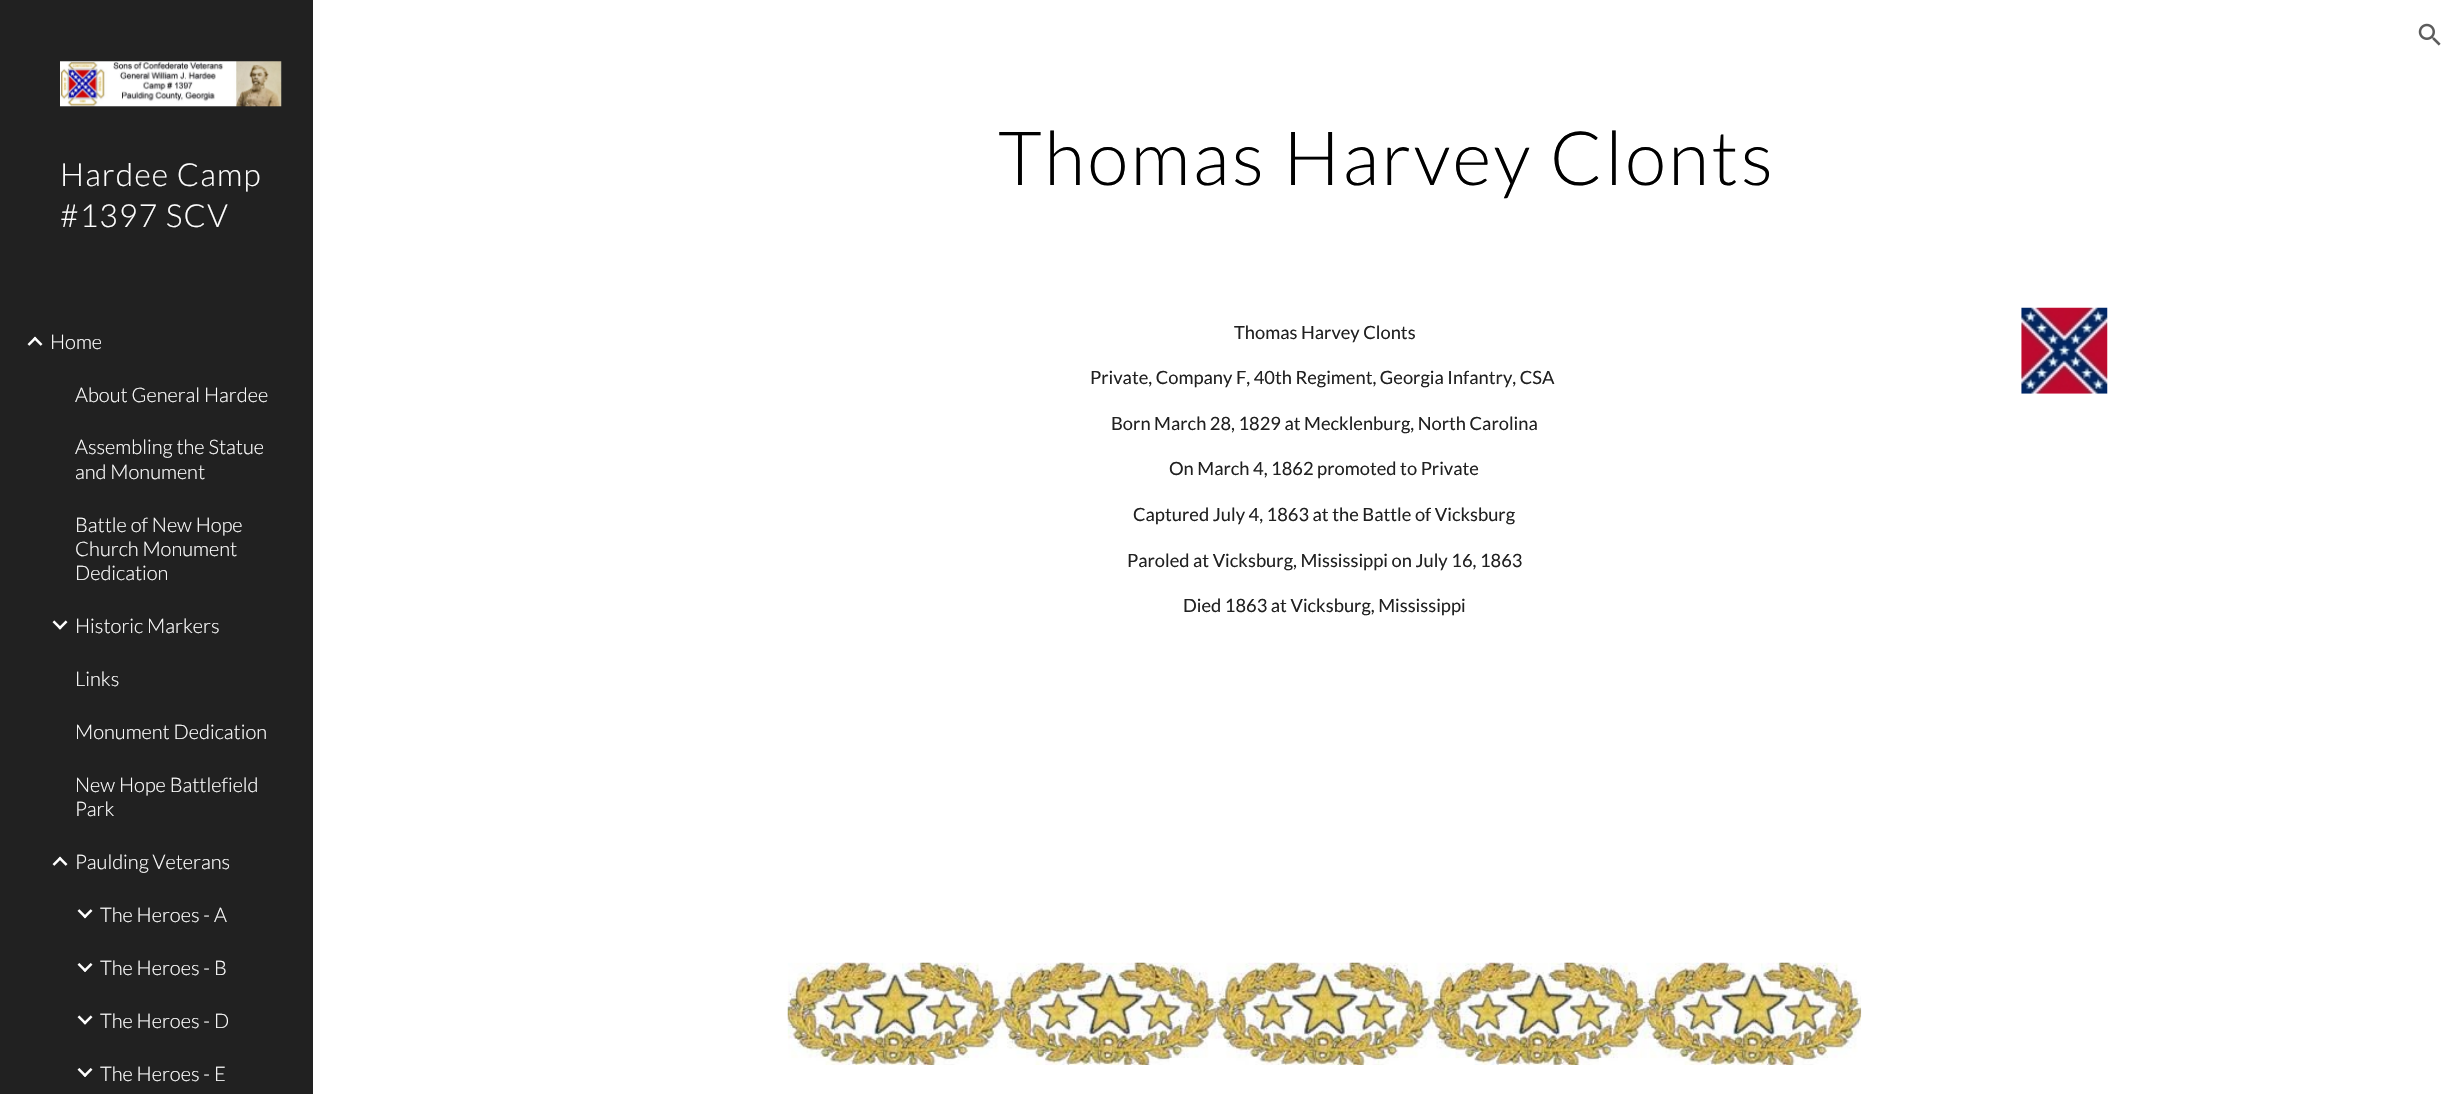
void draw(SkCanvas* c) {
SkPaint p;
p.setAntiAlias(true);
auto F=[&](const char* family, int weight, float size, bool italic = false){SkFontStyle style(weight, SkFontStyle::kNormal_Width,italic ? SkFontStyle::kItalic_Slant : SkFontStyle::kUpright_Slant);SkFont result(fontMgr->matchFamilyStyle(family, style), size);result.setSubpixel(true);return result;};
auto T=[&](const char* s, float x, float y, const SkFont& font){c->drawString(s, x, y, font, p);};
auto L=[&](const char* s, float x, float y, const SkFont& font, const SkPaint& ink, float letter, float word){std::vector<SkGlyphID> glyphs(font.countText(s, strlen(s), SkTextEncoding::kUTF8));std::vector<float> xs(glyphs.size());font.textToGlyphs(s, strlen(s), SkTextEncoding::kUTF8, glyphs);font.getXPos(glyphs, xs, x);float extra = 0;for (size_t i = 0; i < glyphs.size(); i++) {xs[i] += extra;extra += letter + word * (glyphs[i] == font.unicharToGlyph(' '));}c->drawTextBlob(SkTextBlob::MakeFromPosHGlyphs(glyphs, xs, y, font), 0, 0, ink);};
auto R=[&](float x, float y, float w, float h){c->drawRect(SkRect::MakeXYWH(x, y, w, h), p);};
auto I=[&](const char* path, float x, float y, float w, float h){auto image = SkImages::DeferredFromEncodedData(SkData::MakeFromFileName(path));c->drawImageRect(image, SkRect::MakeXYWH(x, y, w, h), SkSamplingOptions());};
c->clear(0xffffffff);
I("1.png",2418,23,23,23);
p.setColor(0xff212121);
R(0,0,313,1094);
I("2.png",60,61,222,46);
auto f1 = F("Lato",300,31.75);
p.setColor(0xffffffff);
L("Hardee Camp",60,186,f1,p,1.25,0);
L("#1397 SCV",60,227,f1,p,1.25,0);
I("3.png",27,336,16,10);
auto f2 = F("Lato",300,20);
T("Home",50,349,f2);
T("About General Hardee",75,402,f2);
T("Assembling the Statue",75,454,f2);
T("and Monument",75,479,f2);
T("Battle of New Hope",75,532,f2);
T("Church Monument",75,556,f2);
T("Dedication",75,580,f2);
I("4.png",52,620,16,10);
T("Historic Markers",75,633,f2);
T("Links",75,686,f2);
T("Monument Dedication",75,739,f2);
T("New Hope Battlefield",75,792,f2);
T("Park",75,816,f2);
I("3.png",52,856,16,10);
T("Paulding Veterans",75,869,f2);
I("5.png",77,909,16,10);
T("The Heroes - A",100,922,f2);
I("6.png",77,963,16,9);
T("The Heroes - B",100,975,f2);
I("4.png",77,1015,16,10);
T("The Heroes - D",100,1028,f2);
I("6.png",77,1068,16,9);
T("The Heroes - E",100,1081,f2);
auto f3 = F("Lato",300,75);
p.setColor(0xff000000);
L("Thomas Harvey Clonts",998,185,f3,p,2.5,0);
auto f4 = F("Lato",400,18.3);
p.setColor(0xff212121);
T("Thomas Harvey Clonts",1234,339,f4);
T("Private, Company F, 40th Regiment, Georgia Infantry, CSA",1090,384,f4);
T("Born March 28, 1829 at Mecklenburg, North Carolina",1111,430,f4);
T("On March 4, 1862 promoted to Private",1169,475,f4);
T("Captured July 4, 1863 at the Battle of Vicksburg",1133,521,f4);
T("Paroled at Vicksburg, Mississippi on July 16, 1863",1127,567,f4);
T("Died 1863 at Vicksburg, Mississippi",1183,612,f4);
I("7.png",2021,307,87,87);
I("8.png",787,962,1075,103);
}
